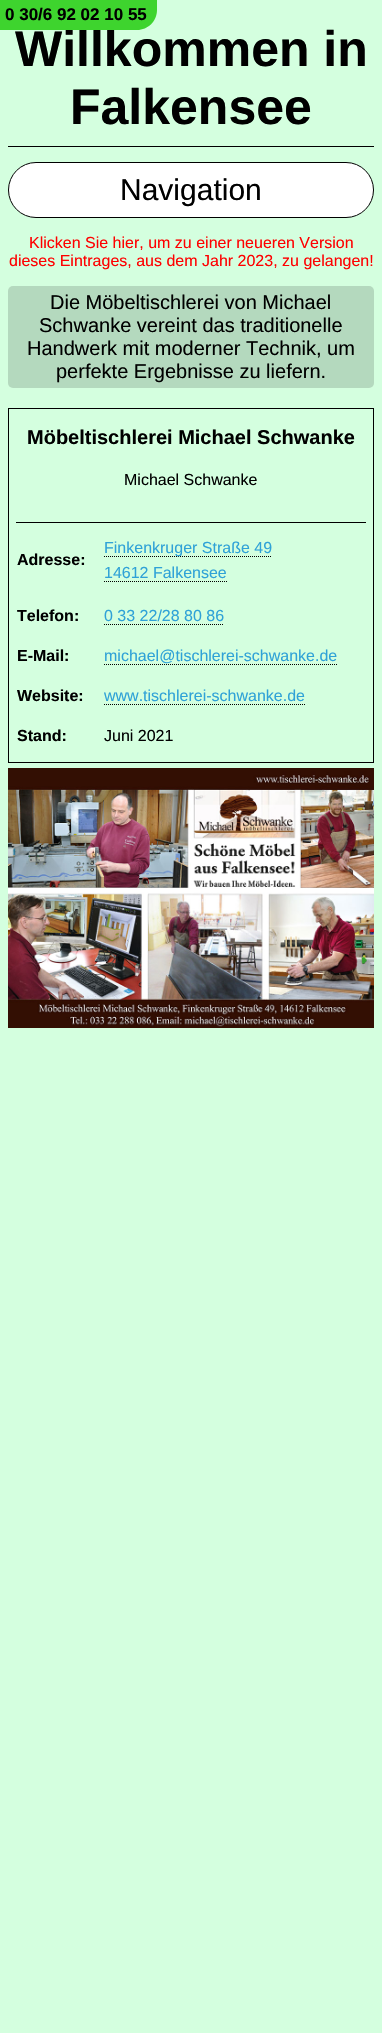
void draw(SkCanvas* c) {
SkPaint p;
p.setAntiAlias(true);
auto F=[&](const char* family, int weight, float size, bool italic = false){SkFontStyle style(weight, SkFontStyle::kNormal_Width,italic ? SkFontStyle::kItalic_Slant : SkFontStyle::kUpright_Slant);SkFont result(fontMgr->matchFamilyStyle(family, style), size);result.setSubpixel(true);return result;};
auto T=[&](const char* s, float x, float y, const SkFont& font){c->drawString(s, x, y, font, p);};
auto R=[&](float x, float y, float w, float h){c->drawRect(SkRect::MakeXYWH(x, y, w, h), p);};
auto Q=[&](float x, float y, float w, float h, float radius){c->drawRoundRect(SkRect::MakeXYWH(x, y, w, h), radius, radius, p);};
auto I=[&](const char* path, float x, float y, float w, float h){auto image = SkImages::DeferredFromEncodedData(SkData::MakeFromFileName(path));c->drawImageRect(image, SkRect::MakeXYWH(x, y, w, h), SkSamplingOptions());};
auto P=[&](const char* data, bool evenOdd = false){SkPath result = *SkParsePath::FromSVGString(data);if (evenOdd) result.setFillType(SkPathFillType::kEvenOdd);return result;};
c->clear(0xffd4ffdf);
auto f1 = F("Liberation Sans",700,50);
p.setColor(0xff000000);
T("Willkommen in",15,66,f1);
p.setColor(0xff3ed42e);
c->drawPath(P("M0 0h157v10c0 11-9 20-20 20h-137z"),p);
auto f2 = F("Liberation Sans",700,17);
p.setColor(0xff000000);
T("0 30/6 92 02 10 55",5,20,f2);
R(8,146,366,1);
T("Falkensee",70,124,f1);
p.setColor(0xffffffff);
c->drawRoundRect(SkRect::MakeXYWH(8.5,162.5,365,55),27.5,27.5,p);
p.setStroke(true);
p.setStrokeWidth(1);
p.setColor(0xff000000);
c->drawRoundRect(SkRect::MakeXYWH(8.5,162.5,365,55),27.5,27.5,p);
auto f3 = F("Liberation Sans",400,30);
p.setStroke(false);
T("Navigation",120,200,f3);
auto f4 = F("Liberation Sans",400,16);
p.setColor(0xffff0000);
T("Klicken Sie hier, um zu einer neueren Version",29,248,f4);
T("dieses Eintrages, aus dem Jahr 2023, zu gelangen!",9,266,f4);
p.setColor(0xffb4d9be);
Q(8,286,366,102,5);
auto f5 = F("Liberation Sans",400,20);
p.setColor(0xff000000);
T("Die Möbeltischlerei von Michael",50,309,f5);
T("Schwanke vereint das traditionelle",39,332,f5);
T("Handwerk mit moderner Technik, um",27,355,f5);
T("perfekte Ergebnisse zu liefern.",56,378,f5);
p.setStroke(true);
c->drawRect(SkRect::MakeXYWH(8.5,408.5,365,354),p);
auto f6 = F("Liberation Sans",700,20);
p.setStroke(false);
T("Möbeltischlerei Michael Schwanke",27,444,f6);
T("Michael Schwanke",124,485,f4);
R(16,522,350,1);
auto f7 = F("Liberation Sans",700,16);
T("Adresse:",17,565,f7);
p.setStroke(true);
p.setPathEffect(SkDashPathEffect::Make({{1,1}}, 0));
c->drawPath(P("M104 556.5h168"),p);
p.setPathEffect(nullptr);
p.setStroke(false);
p.setColor(0xff2fa2d7);
T("Finkenkruger Straße 49",104,553,f4);
T("14612 Falkensee",104,578,f4);
p.setStroke(true);
p.setColor(0xff000000);
p.setPathEffect(SkDashPathEffect::Make({{1,1}}, 0));
c->drawPath(P("M104 581.5h123"),p);
p.setPathEffect(nullptr);
p.setStroke(false);
T("Telefon:",17,621,f7);
p.setColor(0xff2fa2d7);
T("0 33 22/28 80 86",104,621,f4);
p.setStroke(true);
p.setColor(0xff000000);
p.setPathEffect(SkDashPathEffect::Make({{1,1}}, 0));
c->drawPath(P("M104 624.5h120"),p);
p.setPathEffect(nullptr);
p.setStroke(false);
T("E-Mail:",17,661,f7);
p.setColor(0xff2fa2d7);
T("michael@tischlerei-schwanke.de",104,661,f4);
p.setStroke(true);
p.setColor(0xff000000);
p.setPathEffect(SkDashPathEffect::Make({{1,1}}, 0));
c->drawPath(P("M104 664.5h234"),p);
p.setPathEffect(nullptr);
p.setStroke(false);
T("Website:",17,701,f7);
p.setColor(0xff2fa2d7);
T("www.tischlerei-schwanke.de",104,701,f4);
p.setStroke(true);
p.setColor(0xff000000);
p.setPathEffect(SkDashPathEffect::Make({{1,1}}, 0));
c->drawPath(P("M104 704.5h201"),p);
p.setPathEffect(nullptr);
p.setStroke(false);
T("Stand:",17,741,f7);
T("Juni 2021",104,741,f4);
I("1.png",8,768,366,260);
}
